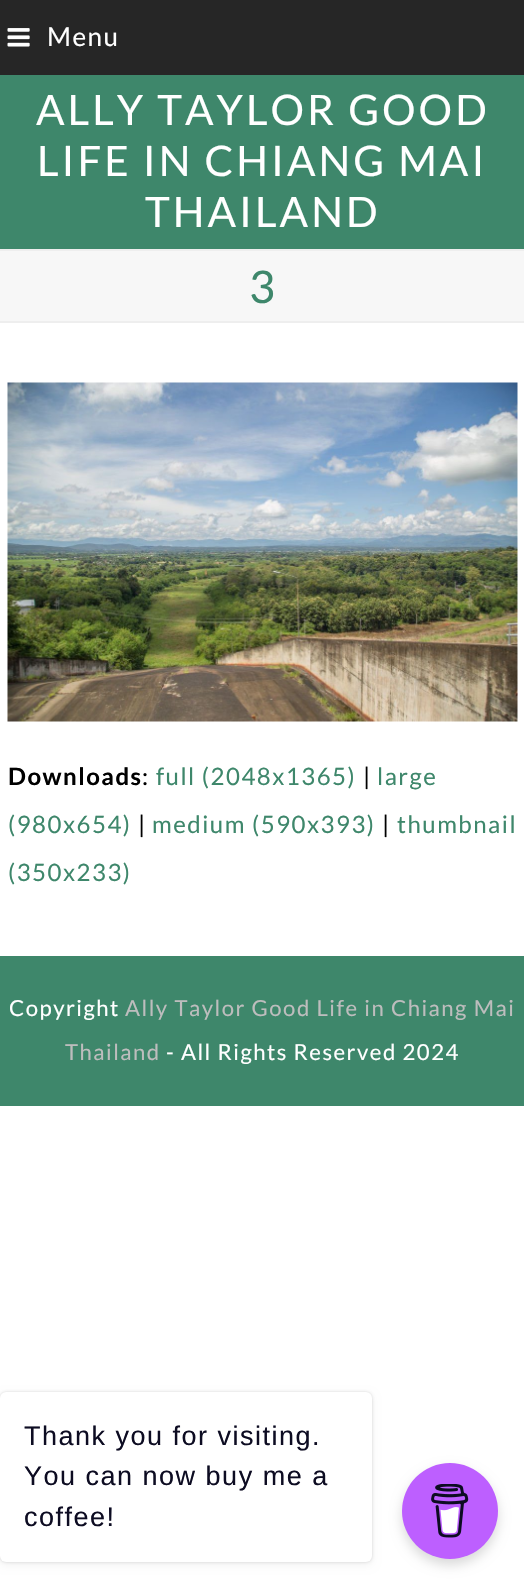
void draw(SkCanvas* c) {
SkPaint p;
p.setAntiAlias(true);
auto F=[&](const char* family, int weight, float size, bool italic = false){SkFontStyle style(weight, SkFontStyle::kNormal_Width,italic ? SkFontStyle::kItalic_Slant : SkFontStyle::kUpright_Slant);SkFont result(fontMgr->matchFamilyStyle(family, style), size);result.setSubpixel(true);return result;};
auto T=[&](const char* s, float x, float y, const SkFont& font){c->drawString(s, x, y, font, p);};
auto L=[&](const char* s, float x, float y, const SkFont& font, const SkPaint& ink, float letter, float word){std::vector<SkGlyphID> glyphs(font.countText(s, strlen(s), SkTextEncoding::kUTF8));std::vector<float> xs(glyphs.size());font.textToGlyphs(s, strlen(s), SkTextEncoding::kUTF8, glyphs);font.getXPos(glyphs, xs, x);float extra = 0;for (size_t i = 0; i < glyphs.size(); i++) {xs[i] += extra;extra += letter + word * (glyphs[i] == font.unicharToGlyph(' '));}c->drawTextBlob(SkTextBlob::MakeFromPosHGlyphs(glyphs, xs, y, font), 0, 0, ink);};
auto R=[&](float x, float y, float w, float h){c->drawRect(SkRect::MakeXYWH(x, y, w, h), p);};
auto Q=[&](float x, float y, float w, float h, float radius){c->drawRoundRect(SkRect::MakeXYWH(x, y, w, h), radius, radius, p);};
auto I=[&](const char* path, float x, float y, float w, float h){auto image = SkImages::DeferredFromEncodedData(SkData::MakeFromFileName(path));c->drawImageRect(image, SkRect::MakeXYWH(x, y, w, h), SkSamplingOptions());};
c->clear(0xffffffff);
p.setColor(0xff262626);
R(0,0,524,75);
I("1.png",7,28,23,19);
auto f1 = F("Lato",400,26);
p.setColor(0xffffffff);
L("Menu",47,46,f1,p,1.5,0);
p.setColor(0xff3e876b);
R(0,75,524,174);
auto f2 = F("Lato",400,42);
p.setColor(0xffffffff);
L("ALLY TAYLOR GOOD",36,125,f2,p,3,0);
L("LIFE IN CHIANG MAI",37,176,f2,p,3,0);
L("THAILAND",145,227,f2,p,3,0);
p.setColor(0xfff7f7f7);
R(0,251,524,70);
p.setColor(0xffeeeeee);
R(0,249,524,2);
R(0,321,524,2);
auto f3 = F("Lato",400,45);
p.setColor(0xff3e876b);
T("3",249,303,f3);
I("2.png",7,382,511,340);
auto f4 = F("Lato",700,24);
p.setColor(0xff000000);
L("Downloads",8,785,f4,p,1.5,0);
auto f5 = F("Lato",400,24);
L(":",142,785,f5,p,1.5,0);
p.setColor(0xff3e876b);
L("full (2048x1365)",156,785,f5,p,1.5,0);
p.setColor(0xff000000);
L("|",363,785,f5,p,1.5,0);
p.setColor(0xff3e876b);
L("large",377,785,f5,p,1.5,0);
L("(980x654)",8,833,f5,p,1.5,0);
p.setColor(0xff000000);
L("|",138,833,f5,p,1.5,0);
p.setColor(0xff3e876b);
L("medium (590x393)",152,833,f5,p,1.5,0);
p.setColor(0xff000000);
L("|",382,833,f5,p,1.5,0);
p.setColor(0xff3e876b);
L("thumbnail",397,833,f5,p,1.5,0);
L("(350x233)",8,881,f5,p,1.5,0);
R(0,956,524,150);
auto f6 = F("Lato",400,22.1);
p.setColor(0xffffffff);
L("Copyright",9,1016,f6,p,1.5,0);
p.setColor(0xffbdbdbd);
L("Ally Taylor Good Life in Chiang Mai",125,1016,f6,p,1.5,0);
L("Thailand",65,1060,f6,p,1.5,0);
p.setColor(0xffffffff);
L("- All Rights Reserved 2024",166,1060,f6,p,1.5,0);
p.setColor(0x26000000);
p.setMaskFilter(SkMaskFilter::MakeBlur(kNormal_SkBlurStyle, 1.5));
c->drawRoundRect(SkRect::MakeXYWH(0,1392,372,170),6,6,p);
p.setMaskFilter(nullptr);
p.setColor(0x0d000000);
p.setMaskFilter(SkMaskFilter::MakeBlur(kNormal_SkBlurStyle, 4));
c->drawRoundRect(SkRect::MakeXYWH(0,1395,372,170),6,6,p);
p.setMaskFilter(nullptr);
p.setColor(0xffffffff);
Q(0,1392,372,170,6);
auto f7 = F("Liberation Sans",400,27);
p.setColor(0xff0d0c22);
L("Thank you for visiting.",24,1445,f7,p,1.5,0);
L("You can now buy me a",24,1485,f7,p,1.5,0);
L("coffee!",24,1526,f7,p,1.5,0);
p.setColor(0x26000000);
p.setMaskFilter(SkMaskFilter::MakeBlur(kNormal_SkBlurStyle, 6));
c->drawRoundRect(SkRect::MakeXYWH(402,1469,96,96),48,48,p);
p.setMaskFilter(nullptr);
p.setColor(0xffbd5fff);
c->drawCircle(450,1511,48,p);
I("3.png",431,1484,38,54);
}
